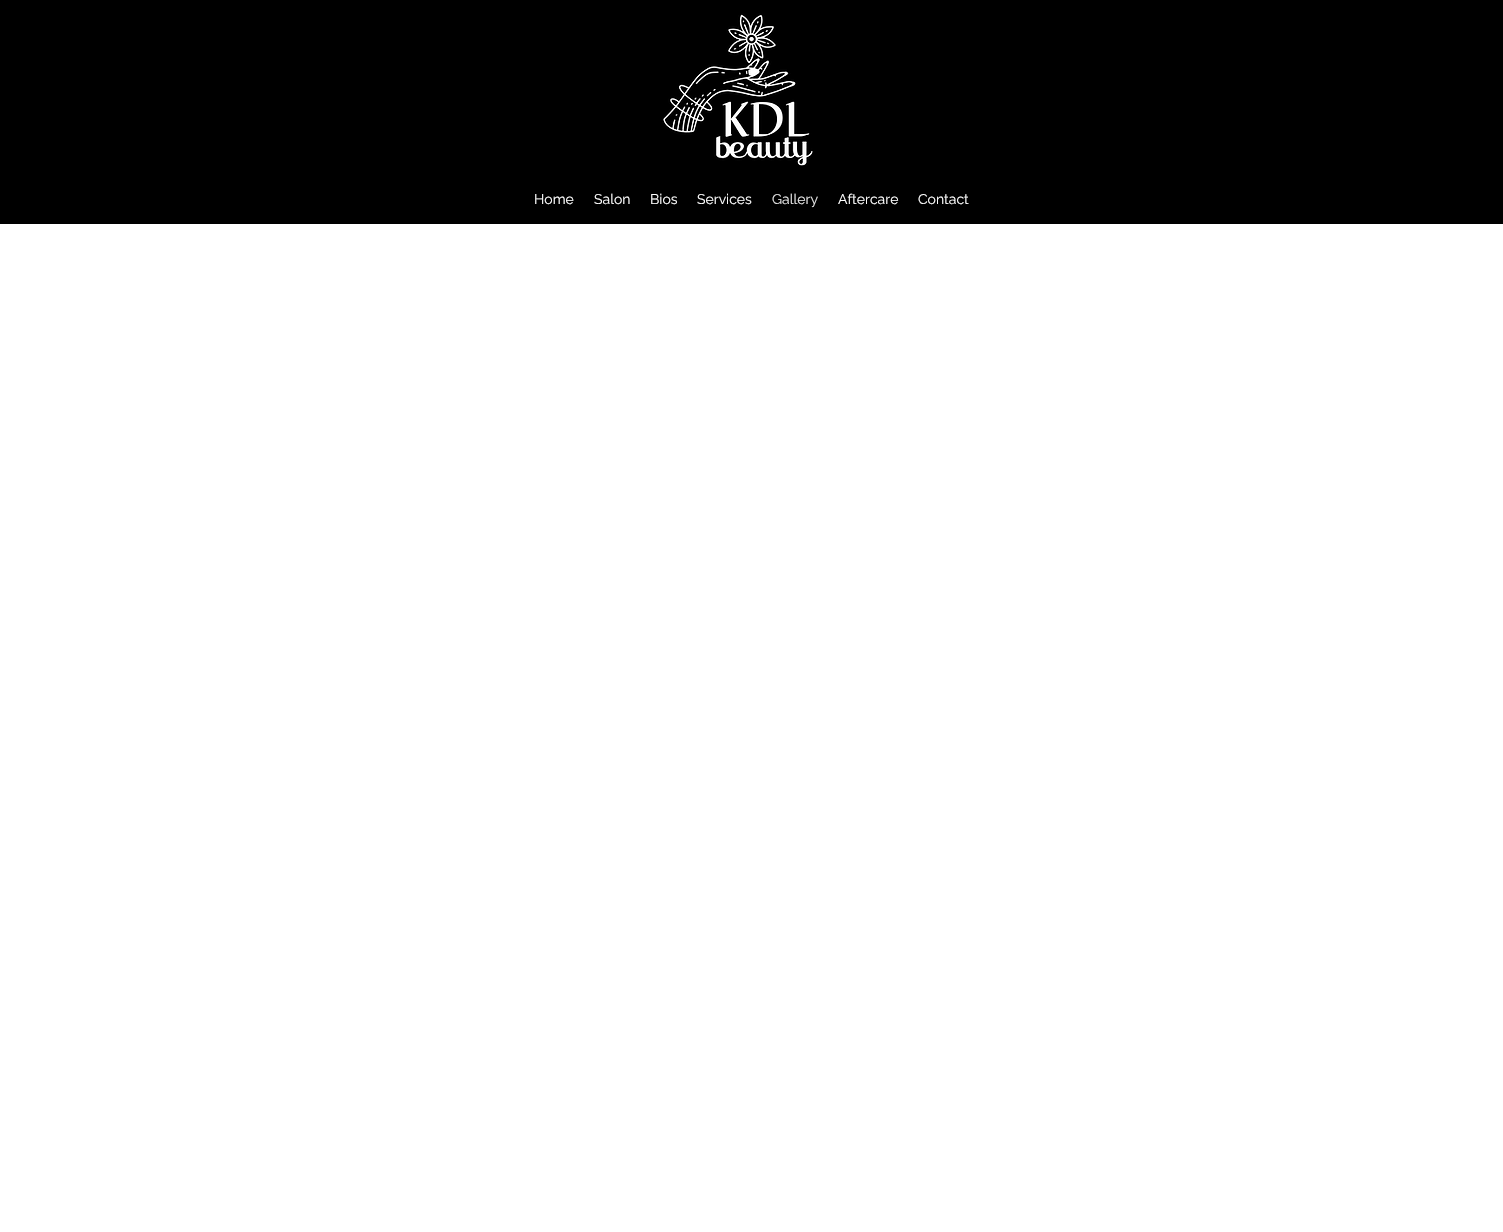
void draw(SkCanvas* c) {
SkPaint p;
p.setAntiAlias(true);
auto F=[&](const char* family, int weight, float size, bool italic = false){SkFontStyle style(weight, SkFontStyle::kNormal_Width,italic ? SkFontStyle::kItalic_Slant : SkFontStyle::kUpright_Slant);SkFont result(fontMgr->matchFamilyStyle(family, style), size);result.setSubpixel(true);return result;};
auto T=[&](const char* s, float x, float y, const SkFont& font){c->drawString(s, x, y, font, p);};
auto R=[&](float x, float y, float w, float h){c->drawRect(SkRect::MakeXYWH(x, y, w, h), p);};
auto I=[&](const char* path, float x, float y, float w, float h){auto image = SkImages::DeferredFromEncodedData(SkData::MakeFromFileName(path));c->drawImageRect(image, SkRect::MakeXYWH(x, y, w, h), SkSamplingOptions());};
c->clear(0xffffffff);
p.setColor(0xff000000);
R(0,0,1503,224);
I("1.png",662,13,151,153);
auto f1 = F("Raleway",400,14);
p.setColor(0xffffffff);
T("Home",534,204,f1);
T("Salon",594,204,f1);
T("Bios",650,204,f1);
T("Services",697,204,f1);
p.setColor(0xffe6e6e6);
T("Gallery",772,204,f1);
p.setColor(0xffffffff);
T("Aftercare",838,204,f1);
T("Contact",918,204,f1);
}
